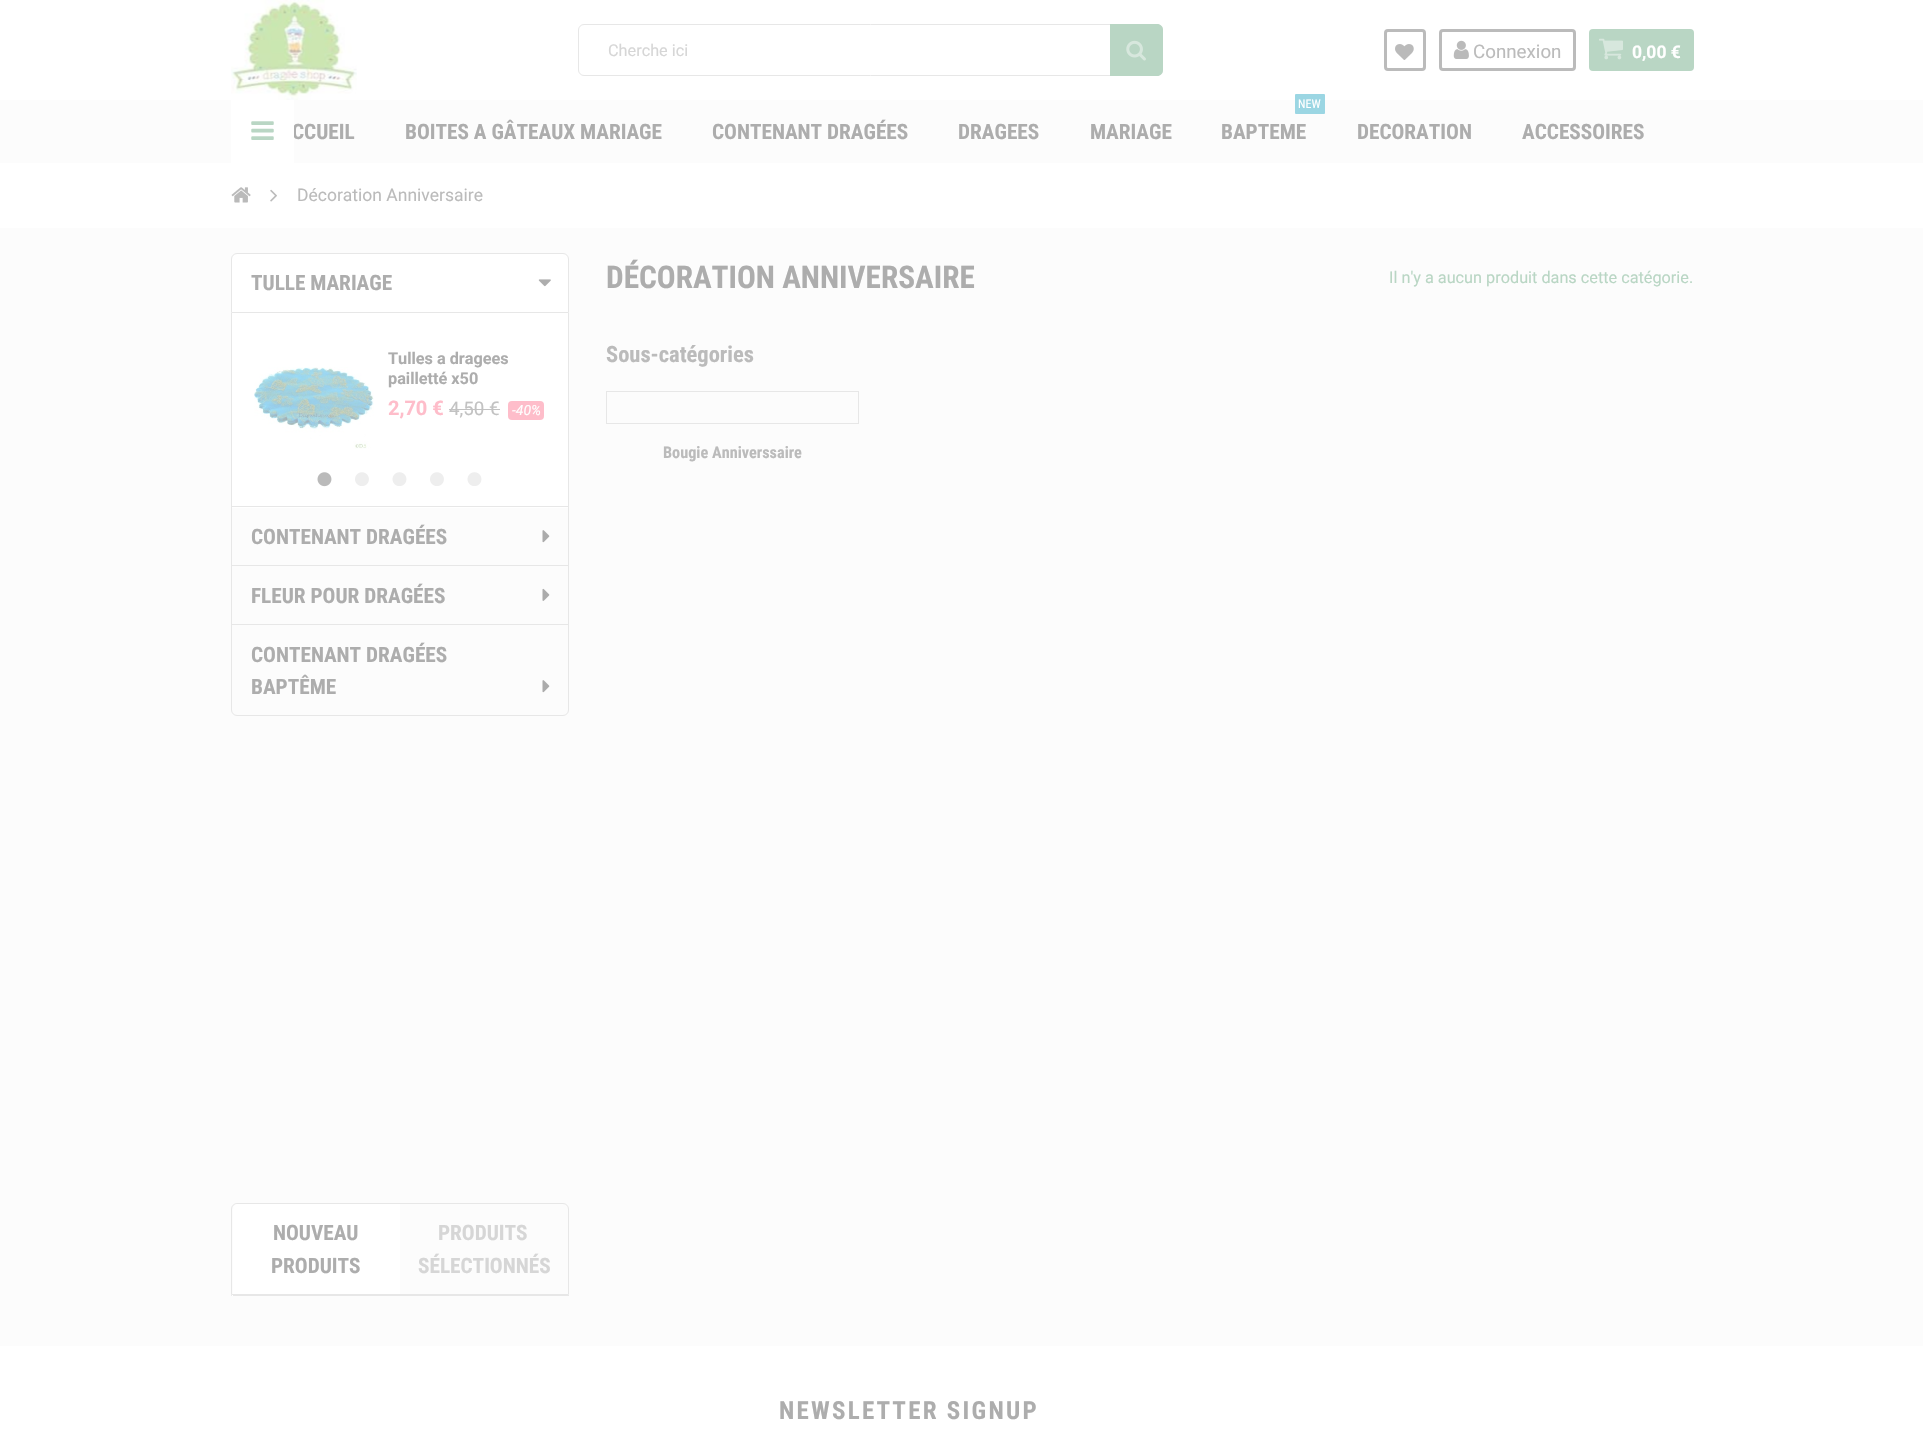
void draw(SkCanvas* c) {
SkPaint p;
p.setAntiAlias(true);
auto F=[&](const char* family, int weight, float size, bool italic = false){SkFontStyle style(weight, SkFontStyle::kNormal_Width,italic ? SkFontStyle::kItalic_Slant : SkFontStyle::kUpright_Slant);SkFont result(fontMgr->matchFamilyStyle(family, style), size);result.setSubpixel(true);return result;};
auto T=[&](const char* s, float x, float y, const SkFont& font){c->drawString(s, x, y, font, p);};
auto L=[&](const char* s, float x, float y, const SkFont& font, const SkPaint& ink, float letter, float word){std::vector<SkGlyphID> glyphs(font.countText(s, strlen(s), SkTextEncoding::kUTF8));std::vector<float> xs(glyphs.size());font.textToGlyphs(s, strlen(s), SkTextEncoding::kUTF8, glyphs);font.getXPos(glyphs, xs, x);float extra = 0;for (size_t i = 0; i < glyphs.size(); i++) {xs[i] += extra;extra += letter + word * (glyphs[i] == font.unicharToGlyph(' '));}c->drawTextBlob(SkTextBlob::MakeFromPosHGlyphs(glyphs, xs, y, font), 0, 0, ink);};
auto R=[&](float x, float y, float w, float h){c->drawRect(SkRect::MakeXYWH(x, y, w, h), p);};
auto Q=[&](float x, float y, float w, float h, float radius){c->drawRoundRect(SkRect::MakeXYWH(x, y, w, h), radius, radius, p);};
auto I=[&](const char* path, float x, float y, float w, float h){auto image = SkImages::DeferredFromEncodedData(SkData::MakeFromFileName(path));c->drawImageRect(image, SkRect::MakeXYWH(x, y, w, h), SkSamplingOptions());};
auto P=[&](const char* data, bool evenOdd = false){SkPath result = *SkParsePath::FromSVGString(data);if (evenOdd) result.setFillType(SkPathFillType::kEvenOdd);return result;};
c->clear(0xffffffff);
I("1.png",231,0,126,100);
p.setStroke(true);
p.setStrokeWidth(1);
p.setColor(0xffe7e7e7);
c->drawRoundRect(SkRect::MakeXYWH(578.5,24.5,584,51),5.5,5.5,p);
auto f1 = F("Roboto",400,16.25);
p.setStroke(false);
p.setColor(0xffd6d6d6);
T("Cherche ici",608,56,f1);
p.setColor(0xffb9d6c4);
c->drawPath(P("M1110 24h47c3.5 0 6 2.5 6 6v40c0 3.5-2.5 6-6 6h-47z"),p);
I("2.png",1126,40,20,21);
p.setStroke(true);
p.setStrokeWidth(3);
p.setColor(0xffbbbbbb);
c->drawRoundRect(SkRect::MakeXYWH(1385.5,30.5,39,39),2.5,2.5,p);
I("3.png",1395,44,19,16);
c->drawRoundRect(SkRect::MakeXYWH(1440.5,30.5,134,39),2.5,2.5,p);
I("4.png",1453,40,16,19);
auto f2 = F("Roboto",400,18.75);
p.setStroke(false);
T("Connexion",1473,58,f2);
p.setColor(0xffb9d6c4);
Q(1589,29,105,42,4);
I("5.png",1599,38,24,22);
auto f3 = F("Roboto",700,17.5);
p.setColor(0xffffffff);
T("0,00 €",1632,58,f3);
p.setColor(0xfffcfcfc);
R(0,100,1923,63);
auto f4 = F("Roboto Condensed",700,21.25);
p.setColor(0xffadadad);
T("CCUEIL",292,139,f4);
p.setColor(0xffffffff);
R(231,100,63,63);
I("6.png",251,121,23,19);
p.setColor(0xffadadad);
T("BOITES A GÂTEAUX MARIAGE",405,139,f4);
T("CONTENANT DRAGÉES",712,139,f4);
T("DRAGEES",958,139,f4);
T("MARIAGE",1090,139,f4);
p.setColor(0xff9bd6e3);
Q(1295,94,30,20,1);
auto f5 = F("Roboto Condensed",400,12);
p.setColor(0xffffffff);
T("NEW",1298,108,f5);
p.setColor(0xffadadad);
T("BAPTEME",1221,139,f4);
T("DECORATION",1357,139,f4);
T("ACCESSOIRES",1522,139,f4);
I("7.png",231,187,20,16);
I("8.png",270,189,7,13);
auto f6 = F("Roboto",400,17.5);
p.setColor(0xffbbbbbb);
T("Décoration Anniversaire",297,201,f6);
p.setColor(0xfffcfcfc);
R(0,228,1923,1118);
p.setColor(0xffffffff);
c->drawPath(P("M237 253.5h326c3 0 5.5 2.5 5.5 5.5v53.5h-337v-53.5c0-3 2.5-5.5 5.5-5.5z"),p);
p.setStroke(true);
p.setStrokeWidth(1);
p.setColor(0xffe7e7e7);
c->drawPath(P("M237 253.5h326c3 0 5.5 2.5 5.5 5.5v53.5h-337v-53.5c0-3 2.5-5.5 5.5-5.5z"),p);
p.setStroke(false);
p.setColor(0xffadadad);
T("TULLE MARIAGE",251,290,f4);
I("9.png",538,279,13,8);
p.setColor(0xffffffff);
R(232,313,336,195);
p.setColor(0xffe7e7e7);
R(568,313,1,195);
R(231,313,1,195);
I("10.png",254,367,120,82);
auto f7 = F("Roboto",700,16.25);
p.setColor(0xffadadad);
T("Tulles a dragees",388,364,f7);
T("pailletté x50",388,384,f7);
auto f8 = F("Roboto",700,20);
p.setColor(0xfffebdca);
T("2,70 €",388,415,f8);
p.setColor(0xffc2c2c2);
T("4,50 €",449,415,f2);
R(449,409,51,1);
p.setColor(0xfffebdca);
Q(508,401,36,19,4);
auto f9 = F("Roboto",400,14,true);
p.setColor(0xffffffff);
T("-40%",512,415,f9);
I("11.png",317,472,15,15);
I("12.png",355,472,14,14);
I("13.png",392,472,15,14);
I("12.png",430,472,14,14);
I("13.png",467,472,15,14);
p.setStroke(true);
p.setColor(0xffe7e7e7);
c->drawRect(SkRect::MakeXYWH(231.5,506.5,337,59),p);
p.setStroke(false);
p.setColor(0xffadadad);
T("CONTENANT DRAGÉES",251,544,f4);
I("14.png",542,530,8,13);
p.setStroke(true);
p.setColor(0xffe7e7e7);
c->drawRect(SkRect::MakeXYWH(231.5,565.5,337,59),p);
p.setStroke(false);
p.setColor(0xffadadad);
T("FLEUR POUR DRAGÉES",251,603,f4);
I("15.png",542,588,8,13);
p.setStroke(true);
p.setColor(0xffe7e7e7);
c->drawPath(P("M231.5 624.5h337v85.5c0 3-2.5 5.5-5.5 5.5h-326c-3 0-5.5-2.5-5.5-5.5z"),p);
p.setStroke(false);
p.setColor(0xffadadad);
T("CONTENANT DRAGÉES",251,662,f4);
T("BAPTÊME",251,694,f4);
I("14.png",542,680,8,13);
p.setStroke(true);
p.setColor(0xffe7e7e7);
c->drawPath(P("M237 1203.5h326c3 0 5.5 2.5 5.5 5.5v85.5h-337v-85.5c0-3 2.5-5.5 5.5-5.5z"),p);
p.setStroke(false);
p.setColor(0xffffffff);
c->drawPath(P("M238 1204h162v90h-167v-85c0-3 2-5 5-5z"),p);
p.setColor(0xffadadad);
T("NOUVEAU",273,1240,f4);
T("PRODUITS",271,1273,f4);
p.setColor(0xffd6d6d6);
T("PRODUITS",438,1240,f4);
T("SÉLECTIONNÉS",418,1273,f4);
p.setColor(0xffffffff);
c->drawPath(P("M231 1295h338c0 .5-.5 1-1 1h-336c-.5 0-1-.5-1-1z"),p);
p.setColor(0xffe7e7e7);
R(233,1295,336,1);
c->drawCircle(231.5,1295.5,.5,p);
auto f10 = F("Roboto Condensed",700,31.25);
p.setColor(0xffadadad);
T("DÉCORATION ANNIVERSAIRE",606,288,f10);
p.setColor(0xffb9d6c4);
T("Il n'y a aucun produit dans cette catégorie.",1389,283,f1);
auto f11 = F("Roboto Condensed",700,22.5);
p.setColor(0xffbbbbbb);
T("Sous-catégories",606,362,f11);
p.setStroke(true);
p.setColor(0xffe7e7e7);
c->drawRect(SkRect::MakeXYWH(606.5,391.5,252,32),p);
auto f12 = F("Roboto Condensed",700,16.25);
p.setStroke(false);
p.setColor(0xffbbbbbb);
T("Bougie Anniverssaire",663,458,f12);
auto f13 = F("Roboto Condensed",700,25);
p.setColor(0xffadadad);
L("NEWSLETTER SIGNUP",779,1419,f13,p,2.25,0);
}
